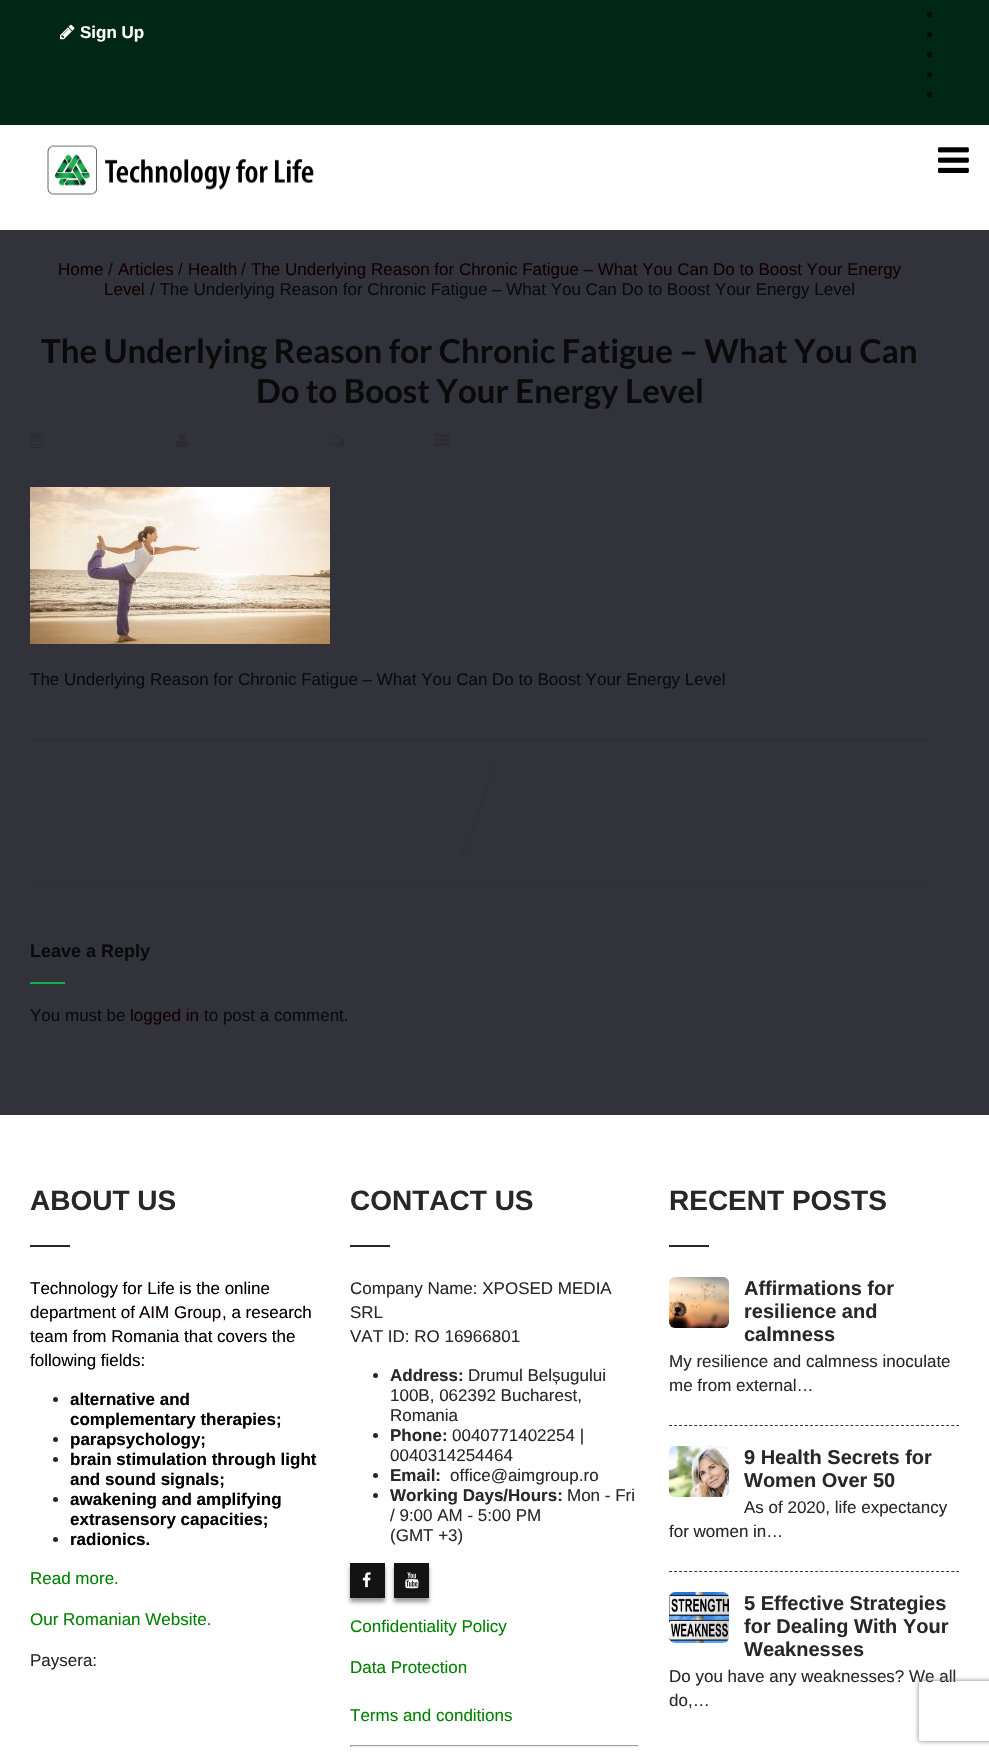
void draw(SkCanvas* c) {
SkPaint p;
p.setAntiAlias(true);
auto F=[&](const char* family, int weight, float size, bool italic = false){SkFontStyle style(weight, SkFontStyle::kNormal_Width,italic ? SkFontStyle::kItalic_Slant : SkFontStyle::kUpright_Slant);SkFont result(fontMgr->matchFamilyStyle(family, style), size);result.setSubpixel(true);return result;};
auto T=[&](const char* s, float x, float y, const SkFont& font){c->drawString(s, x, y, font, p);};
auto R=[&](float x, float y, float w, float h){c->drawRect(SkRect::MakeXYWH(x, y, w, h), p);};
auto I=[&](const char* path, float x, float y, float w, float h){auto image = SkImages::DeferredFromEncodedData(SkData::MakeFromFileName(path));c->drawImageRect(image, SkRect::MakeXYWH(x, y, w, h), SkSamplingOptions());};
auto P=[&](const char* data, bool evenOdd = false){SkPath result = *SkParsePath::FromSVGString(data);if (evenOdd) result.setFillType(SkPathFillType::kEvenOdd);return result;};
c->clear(0xff002615);
I("1.png",60,24,15,16);
auto f1 = F("Liberation Sans",700,17);
p.setColor(0xffffffff);
T("Sign Up",80,38,f1);
p.setColor(0xff0a0a0a);
c->drawCircle(929.5,14.5,2.5,p);
c->drawCircle(929.5,34.5,2.5,p);
c->drawCircle(929.5,54.5,2.5,p);
c->drawCircle(929.5,74.5,2.5,p);
c->drawCircle(929.5,94.5,2.5,p);
p.setColor(0xffffffff);
R(0,125,989,105);
I("2.png",47,145,267,50);
I("3.png",938,147,31,26);
p.setColor(0xff32323a);
R(0,230,989,885);
auto f2 = F("Liberation Sans",400,17);
p.setColor(0xff0f0000);
T("Home",58,275,f2);
p.setColor(0xff0a0a0a);
T("/",108,275,f2);
p.setColor(0xff0f0000);
T("Articles",118,275,f2);
p.setColor(0xff0a0a0a);
T("/",178,275,f2);
p.setColor(0xff0f0000);
T("Health",188,275,f2);
p.setColor(0xff0a0a0a);
T("/",241,275,f2);
p.setColor(0xff0f0000);
T("The Underlying Reason for Chronic Fatigue – What You Can Do to Boost Your Energy",251,275,f2);
T("Level",104,295,f2);
p.setColor(0xff0a0a0a);
T("/ The Underlying Reason for Chronic Fatigue – What You Can Do to Boost Your Energy Level",150,295,f2);
auto f3 = F("Lato",700,33);
T("The Underlying Reason for Chronic Fatigue – What You Can",41,363,f3);
T("Do to Boost Your Energy Level",256,403,f3);
I("4.png",30,433,14,15);
I("5.png",176,434,12,13);
I("6.png",329,435,15,12);
I("7.png",435,434,15,12);
I("8.png",30,487,300,157);
T("The Underlying Reason for Chronic Fatigue – What You Can Do to Boost Your Energy Level",30,685,f2);
p.setColor(0xff2d2d34);
R(30,739,899,1);
p.setColor(0xff2e2e35);
R(30,880,899,1);
p.setColor(0xff2d2d34);
c->drawPath(P("M496 763h1l-34 92h-1z"),p);
auto f4 = F("Liberation Sans",700,18);
p.setColor(0xff0a0a0a);
T("Leave a Reply",30,957,f4);
p.setColor(0xff0bb14e);
R(30,982,35,2);
p.setColor(0xff0a0a0a);
T("You must be",30,1021,f2);
p.setColor(0xff0f0000);
T("logged in",130,1021,f2);
p.setColor(0xff0a0a0a);
T("to post a comment.",204,1021,f2);
p.setColor(0xffffffff);
R(0,1115,989,640);
auto f5 = F("Liberation Sans",700,28);
p.setColor(0xff282828);
T("ABOUT US",30,1210,f5);
R(30,1245,40,2);
p.setColor(0xff000000);
T("Technology for Life is the online",30,1294,f2);
T("department of",30,1318,f2);
p.setColor(0xff0f0000);
T("AIM Group",139,1318,f2);
p.setColor(0xff000000);
T(", a research",222,1318,f2);
T("team from Romania that covers the",30,1342,f2);
T("following fields:",30,1366,f2);
p.setColor(0xff282828);
c->drawCircle(55.5,1399.5,2.5,p);
p.setColor(0xff000000);
T("alternative and",70,1405,f1);
T("complementary therapies;",70,1425,f1);
p.setColor(0xff282828);
c->drawCircle(55.5,1439.5,2.5,p);
p.setColor(0xff000000);
T("parapsychology;",70,1445,f1);
p.setColor(0xff282828);
c->drawCircle(55.5,1459.5,2.5,p);
p.setColor(0xff000000);
T("brain stimulation through light",70,1465,f1);
T("and sound signals;",70,1485,f1);
p.setColor(0xff282828);
c->drawCircle(55.5,1499.5,2.5,p);
p.setColor(0xff000000);
T("awakening and amplifying",70,1505,f1);
T("extrasensory capacities;",70,1525,f1);
p.setColor(0xff282828);
c->drawCircle(55.5,1539.5,2.5,p);
p.setColor(0xff000000);
T("radionics.",70,1545,f1);
p.setColor(0xff008000);
T("Read more.",30,1584,f2);
T("Our Romanian Website.",30,1625,f2);
p.setColor(0xff282828);
T("Paysera:",30,1666,f2);
T("CONTACT US",350,1210,f5);
R(350,1245,40,2);
T("Company Name: XPOSED MEDIA",350,1294,f2);
T("SRL",350,1318,f2);
T("VAT ID: RO 16966801",350,1342,f2);
c->drawCircle(375.5,1375.5,2.5,p);
T("Address:",390,1381,f1);
T("Drumul Belșugului",468,1381,f2);
T("100B, 062392 Bucharest,",390,1401,f2);
T("Romania",390,1421,f2);
c->drawCircle(375.5,1435.5,2.5,p);
T("Phone:",390,1441,f1);
T("0040771402254 |",452,1441,f2);
T("0040314254464",390,1461,f2);
c->drawCircle(375.5,1475.5,2.5,p);
T("Email:",390,1481,f1);
T("office@aimgroup.ro",450,1481,f2);
c->drawCircle(375.5,1495.5,2.5,p);
T("Working Days/Hours:",390,1501,f1);
T("Mon - Fri",567,1501,f2);
T("/ 9:00 AM - 5:00 PM",390,1521,f2);
T("(GMT +3)",390,1541,f2);
p.setColor(0xff999999);
p.setMaskFilter(SkMaskFilter::MakeBlur(kNormal_SkBlurStyle, 2));
c->drawRect(SkRect::MakeXYWH(350,1567,35,35),p);
p.setMaskFilter(nullptr);
p.setColor(0xff131313);
R(350,1563,35,35);
I("9.png",362,1572,9,16);
p.setColor(0xff999999);
p.setMaskFilter(SkMaskFilter::MakeBlur(kNormal_SkBlurStyle, 2));
c->drawRect(SkRect::MakeXYWH(394,1567,35,35),p);
p.setMaskFilter(nullptr);
p.setColor(0xff131313);
R(394,1563,35,35);
I("10.png",405,1572,14,17);
p.setColor(0xff008000);
T("Confidentiality Policy",350,1632,f2);
T("Data Protection",350,1673,f2);
T("Terms and conditions",350,1721,f2);
p.setColor(0xff9f9f9f);
R(350,1745,289,1);
p.setColor(0xffeeeeee);
R(638,1745,1,2);
R(350,1746,289,1);
p.setColor(0xff9f9f9f);
R(350,1745,1,2);
p.setColor(0xff282828);
T("RECENT POSTS",669,1210,f5);
R(669,1245,40,2);
p.setStroke(true);
p.setStrokeWidth(1);
p.setColor(0xff353535);
p.setPathEffect(SkDashPathEffect::Make({{3,2.04f}}, 0));
c->drawPath(P("M669 1425.5h290"),p);
p.setPathEffect(nullptr);
I("11.png",669,1277,60,51);
auto f6 = F("Liberation Sans",700,20);
p.setStroke(false);
p.setColor(0xff282828);
T("Affirmations for",744,1295,f6);
T("resilience and",744,1318,f6);
T("calmness",744,1341,f6);
T("My resilience and calmness inoculate",669,1367,f2);
T("me from external…",669,1391,f2);
p.setStroke(true);
p.setColor(0xff353535);
p.setPathEffect(SkDashPathEffect::Make({{3,2.04f}}, 0));
c->drawPath(P("M669 1571.5h290"),p);
p.setPathEffect(nullptr);
I("12.png",669,1446,60,51);
p.setStroke(false);
p.setColor(0xff282828);
T("9 Health Secrets for",744,1464,f6);
T("Women Over 50",744,1487,f6);
T("As of 2020, life expectancy",744,1513,f2);
T("for women in…",669,1537,f2);
I("13.png",669,1592,60,51);
T("5 Effective Strategies",744,1610,f6);
T("for Dealing With Your",744,1633,f6);
T("Weaknesses",744,1656,f6);
T("Do you have any weaknesses? We all",669,1682,f2);
T("do,…",669,1706,f2);
c->save();
c->clipPath(P("M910 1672h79v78h-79zm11 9h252c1 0 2 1 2 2v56c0 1-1 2-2 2h-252c-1 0-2-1-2-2v-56c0-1 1-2 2-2z",true),true);
p.setColor(0xff808080);
p.setMaskFilter(SkMaskFilter::MakeBlur(kNormal_SkBlurStyle, 2.5));
c->drawRoundRect(SkRect::MakeXYWH(919,1681,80,60),2,2,p);
p.setMaskFilter(nullptr);
c->restore();
}
